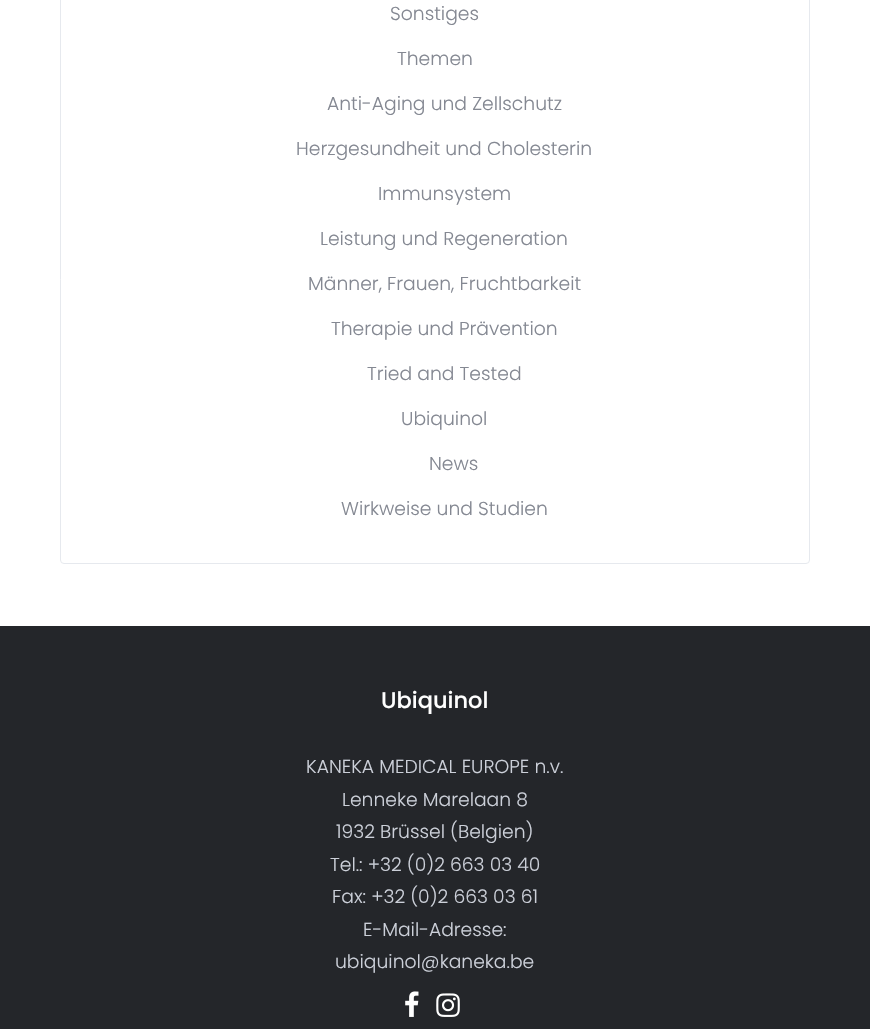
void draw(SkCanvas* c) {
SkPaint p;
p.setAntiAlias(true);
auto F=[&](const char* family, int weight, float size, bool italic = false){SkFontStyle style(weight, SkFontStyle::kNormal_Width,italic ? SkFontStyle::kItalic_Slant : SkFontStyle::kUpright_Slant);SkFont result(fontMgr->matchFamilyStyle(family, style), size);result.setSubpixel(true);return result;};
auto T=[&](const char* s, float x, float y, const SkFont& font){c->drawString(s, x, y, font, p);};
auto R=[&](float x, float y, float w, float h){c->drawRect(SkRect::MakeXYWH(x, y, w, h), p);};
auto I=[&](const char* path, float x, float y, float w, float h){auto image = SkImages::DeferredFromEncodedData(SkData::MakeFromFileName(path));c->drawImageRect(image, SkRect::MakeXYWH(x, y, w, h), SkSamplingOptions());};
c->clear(0xffffffff);
p.setStroke(true);
p.setStrokeWidth(1);
p.setColor(0xffe6e9ee);
c->drawRoundRect(SkRect::MakeXYWH(60.5,-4.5,749,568),3.5,3.5,p);
auto f1 = F("Poppins",300,18.75);
p.setStroke(false);
p.setColor(0xff848892);
T("Sonstiges",390,20,f1);
T("Themen",397,65,f1);
T("Anti-Aging und Zellschutz",327,110,f1);
T("Herzgesundheit und Cholesterin",296,155,f1);
T("Immunsystem",378,200,f1);
T("Leistung und Regeneration",320,245,f1);
T("Männer, Frauen, Fruchtbarkeit",308,290,f1);
T("Therapie und Prävention",331,335,f1);
T("Tried and Tested",367,380,f1);
T("Ubiquinol",401,425,f1);
T("News",429,470,f1);
T("Wirkweise und Studien",341,515,f1);
p.setColor(0xff24262a);
R(0,626,870,403);
auto f2 = F("Poppins",500,22.5);
p.setColor(0xffffffff);
T("Ubiquinol",381,708,f2);
p.setColor(0xffccd0d9);
T("KANEKA MEDICAL EUROPE n.v.",306,773,f1);
T("Lenneke Marelaan 8",342,806,f1);
T("1932 Brüssel (Belgien)",336,838,f1);
T("Tel.: +32 (0)2 663 03 40",330,871,f1);
T("Fax: +32 (0)2 663 03 61",332,903,f1);
T("E-Mail-Adresse:",363,936,f1);
T("ubiquinol@kaneka.be",335,968,f1);
I("1.png",405,991,14,26);
I("2.png",436,993,24,24);
}
